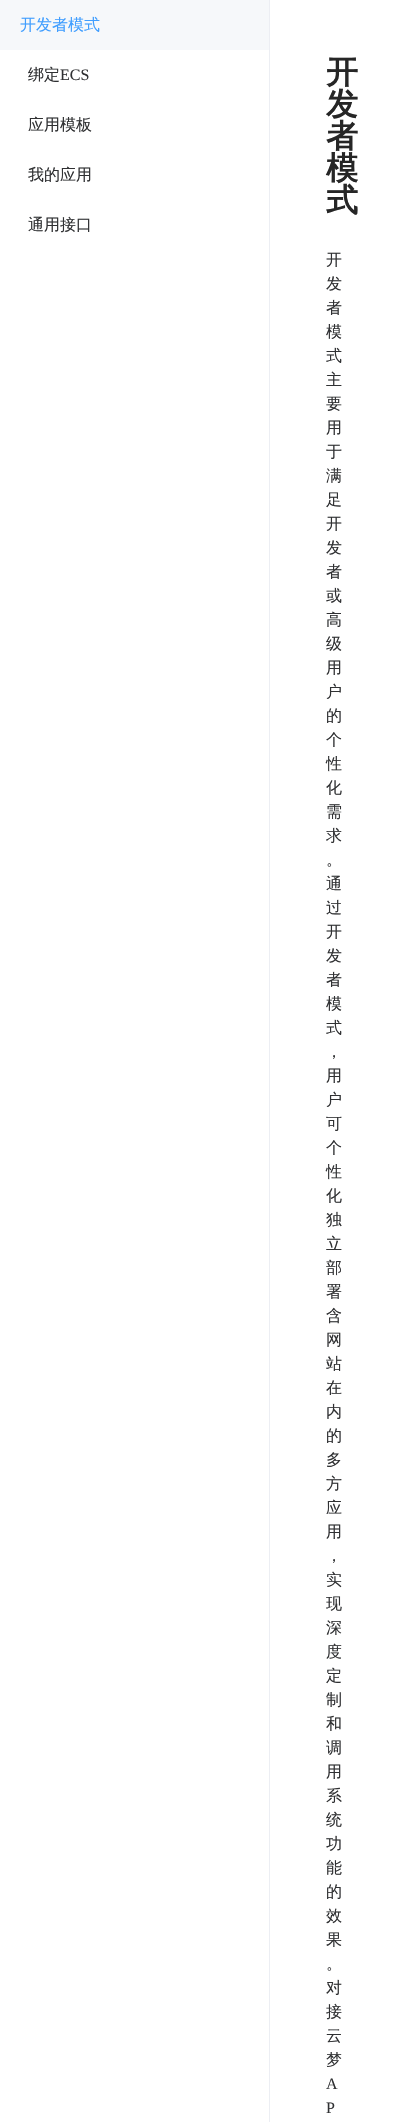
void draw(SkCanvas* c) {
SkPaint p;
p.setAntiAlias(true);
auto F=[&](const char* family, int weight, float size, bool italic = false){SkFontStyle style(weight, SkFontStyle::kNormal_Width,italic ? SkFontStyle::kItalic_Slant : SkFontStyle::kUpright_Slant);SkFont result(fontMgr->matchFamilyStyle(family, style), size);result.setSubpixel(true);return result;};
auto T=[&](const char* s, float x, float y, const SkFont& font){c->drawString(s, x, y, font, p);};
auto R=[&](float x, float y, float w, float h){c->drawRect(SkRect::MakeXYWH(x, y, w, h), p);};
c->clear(0xffffffff);
p.setColor(0xffeceef3);
R(269,0,1,2122);
p.setColor(0xfff6f8fa);
R(0,0,269,50);
auto f1 = F("WenQuanYi Zen Hei",500,16);
p.setColor(0xff409eff);
T("开发者模式",20,30,f1);
p.setColor(0xff303133);
T("绑定",28,80,f1);
auto f2 = F("Liberation Serif",400,16);
T("ECS",60,80,f2);
T("应用模板",28,130,f1);
T("我的应用",28,180,f1);
T("通用接口",28,230,f1);
auto f3 = F("WenQuanYi Zen Hei",700,32);
p.setColor(0xff262626);
T("开",326,83,f3);
T("发",326,115,f3);
T("者",326,147,f3);
T("模",326,179,f3);
T("式",326,211,f3);
p.setColor(0xff303133);
T("开",326,265,f1);
T("发",326,289,f1);
T("者",326,313,f1);
T("模",326,337,f1);
T("式",326,361,f1);
T("主",326,385,f1);
T("要",326,409,f1);
T("用",326,433,f1);
T("于",326,457,f1);
T("满",326,481,f1);
T("足",326,505,f1);
T("开",326,529,f1);
T("发",326,553,f1);
T("者",326,577,f1);
T("或",326,601,f1);
T("高",326,625,f1);
T("级",326,649,f1);
T("用",326,673,f1);
T("户",326,697,f1);
T("的",326,721,f1);
T("个",326,745,f1);
T("性",326,769,f1);
T("化",326,793,f1);
T("需",326,817,f1);
T("求",326,841,f1);
T("。",326,865,f1);
T("通",326,889,f1);
T("过",326,913,f1);
T("开",326,937,f1);
T("发",326,961,f1);
T("者",326,985,f1);
T("模",326,1009,f1);
T("式",326,1033,f1);
T("，",326,1057,f1);
T("用",326,1081,f1);
T("户",326,1105,f1);
T("可",326,1129,f1);
T("个",326,1153,f1);
T("性",326,1177,f1);
T("化",326,1201,f1);
T("独",326,1225,f1);
T("立",326,1249,f1);
T("部",326,1273,f1);
T("署",326,1297,f1);
T("含",326,1321,f1);
T("网",326,1345,f1);
T("站",326,1369,f1);
T("在",326,1393,f1);
T("内",326,1417,f1);
T("的",326,1441,f1);
T("多",326,1465,f1);
T("方",326,1489,f1);
T("应",326,1513,f1);
T("用",326,1537,f1);
T("，",326,1561,f1);
T("实",326,1585,f1);
T("现",326,1609,f1);
T("深",326,1633,f1);
T("度",326,1657,f1);
T("定",326,1681,f1);
T("制",326,1705,f1);
T("和",326,1729,f1);
T("调",326,1753,f1);
T("用",326,1777,f1);
T("系",326,1801,f1);
T("统",326,1825,f1);
T("功",326,1849,f1);
T("能",326,1873,f1);
T("的",326,1897,f1);
T("效",326,1921,f1);
T("果",326,1945,f1);
T("。",326,1969,f1);
T("对",326,1993,f1);
T("接",326,2017,f1);
T("云",326,2041,f1);
T("梦",326,2065,f1);
T("A",326,2089,f2);
T("P",326,2113,f2);
}
